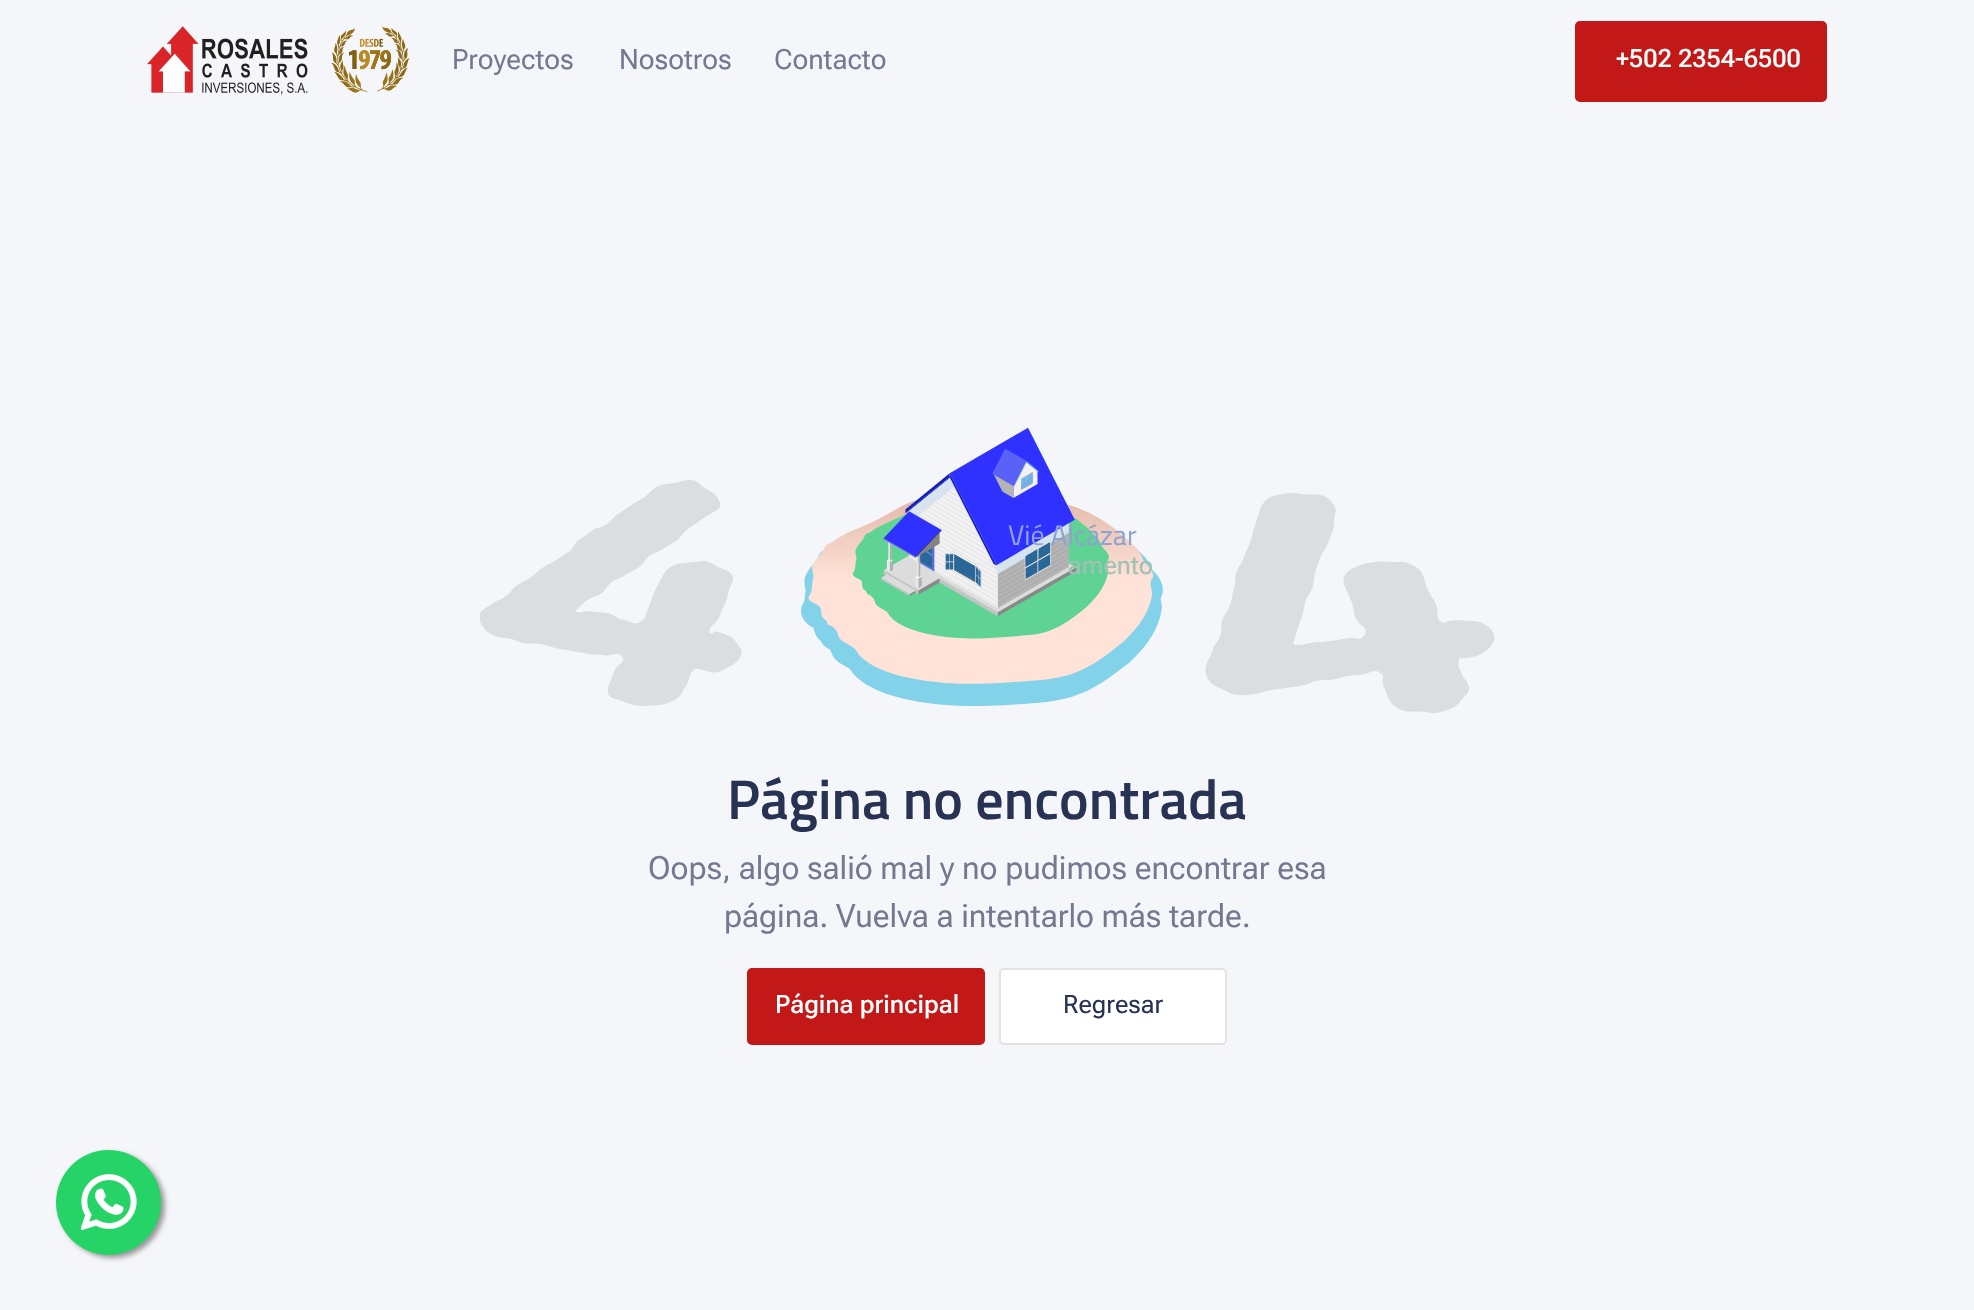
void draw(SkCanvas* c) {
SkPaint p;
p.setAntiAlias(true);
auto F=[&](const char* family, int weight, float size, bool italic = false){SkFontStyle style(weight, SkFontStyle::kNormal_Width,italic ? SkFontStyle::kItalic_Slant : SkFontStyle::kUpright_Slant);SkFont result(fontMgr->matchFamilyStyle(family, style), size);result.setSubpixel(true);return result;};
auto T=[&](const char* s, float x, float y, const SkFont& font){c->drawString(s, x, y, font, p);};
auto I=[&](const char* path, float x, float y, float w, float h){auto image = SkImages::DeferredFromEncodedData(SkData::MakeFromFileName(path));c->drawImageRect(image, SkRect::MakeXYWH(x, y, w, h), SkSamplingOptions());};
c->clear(0xfff5f6fa);
I("1.png",147,26,263,69);
auto f1 = F("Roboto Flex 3",400,28);
p.setColor(0xff747990);
T("Proyectos",452,69,f1);
T("Nosotros",619,69,f1);
T("Contacto",774,69,f1);
p.setColor(0xffc31818);
c->drawRoundRect(SkRect::MakeXYWH(1576,22,250,79),4,4,p);
p.setStroke(true);
p.setStrokeWidth(2);
c->drawRoundRect(SkRect::MakeXYWH(1576,22,250,79),4,4,p);
auto f2 = F("Roboto Flex",500,25.25);
p.setStroke(false);
p.setColor(0xffffffff);
T("+502 2354-6500",1616,67,f2);
I("2.png",480,427,1015,286);
auto f3 = F("Titillium Web",400,28);
p.setColor(0xff8da2d1);
T("Vié Alcázar",1008,545,f3);
auto f4 = F("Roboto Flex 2",400,25.25);
p.setColor(0xffa2c0b5);
T("amento",1068,574,f4);
auto f5 = F("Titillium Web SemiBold",600,56);
p.setColor(0xff283252);
T("Página no encontrada",727,819,f5);
auto f6 = F("Roboto Flex",400,32.2);
p.setColor(0xff747990);
T("Oops, algo salió mal y no pudimos encontrar esa",648,879,f6);
T("página. Vuelva a intentarlo más tarde.",724,927,f6);
p.setColor(0xffc31818);
c->drawRoundRect(SkRect::MakeXYWH(748,969,236,75),4,4,p);
p.setStroke(true);
c->drawRoundRect(SkRect::MakeXYWH(748,969,236,75),4,4,p);
p.setStroke(false);
p.setColor(0xffffffff);
T("Página principal",775,1013,f2);
c->drawRoundRect(SkRect::MakeXYWH(1000,969,226,75),4,4,p);
p.setStroke(true);
p.setColor(0xffe3e3e3);
c->drawRoundRect(SkRect::MakeXYWH(1000,969,226,75),4,4,p);
p.setStroke(false);
p.setColor(0xff283252);
T("Regresar",1063,1013,f4);
p.setColor(0xff999999);
p.setMaskFilter(SkMaskFilter::MakeBlur(kNormal_SkBlurStyle, 2.5));
c->drawRoundRect(SkRect::MakeXYWH(60,1153,105,105),52.5,52.5,p);
p.setMaskFilter(nullptr);
p.setColor(0xff25d366);
c->drawCircle(108.5,1202.5,52.5,p);
I("3.png",81,1174,56,56);
}
